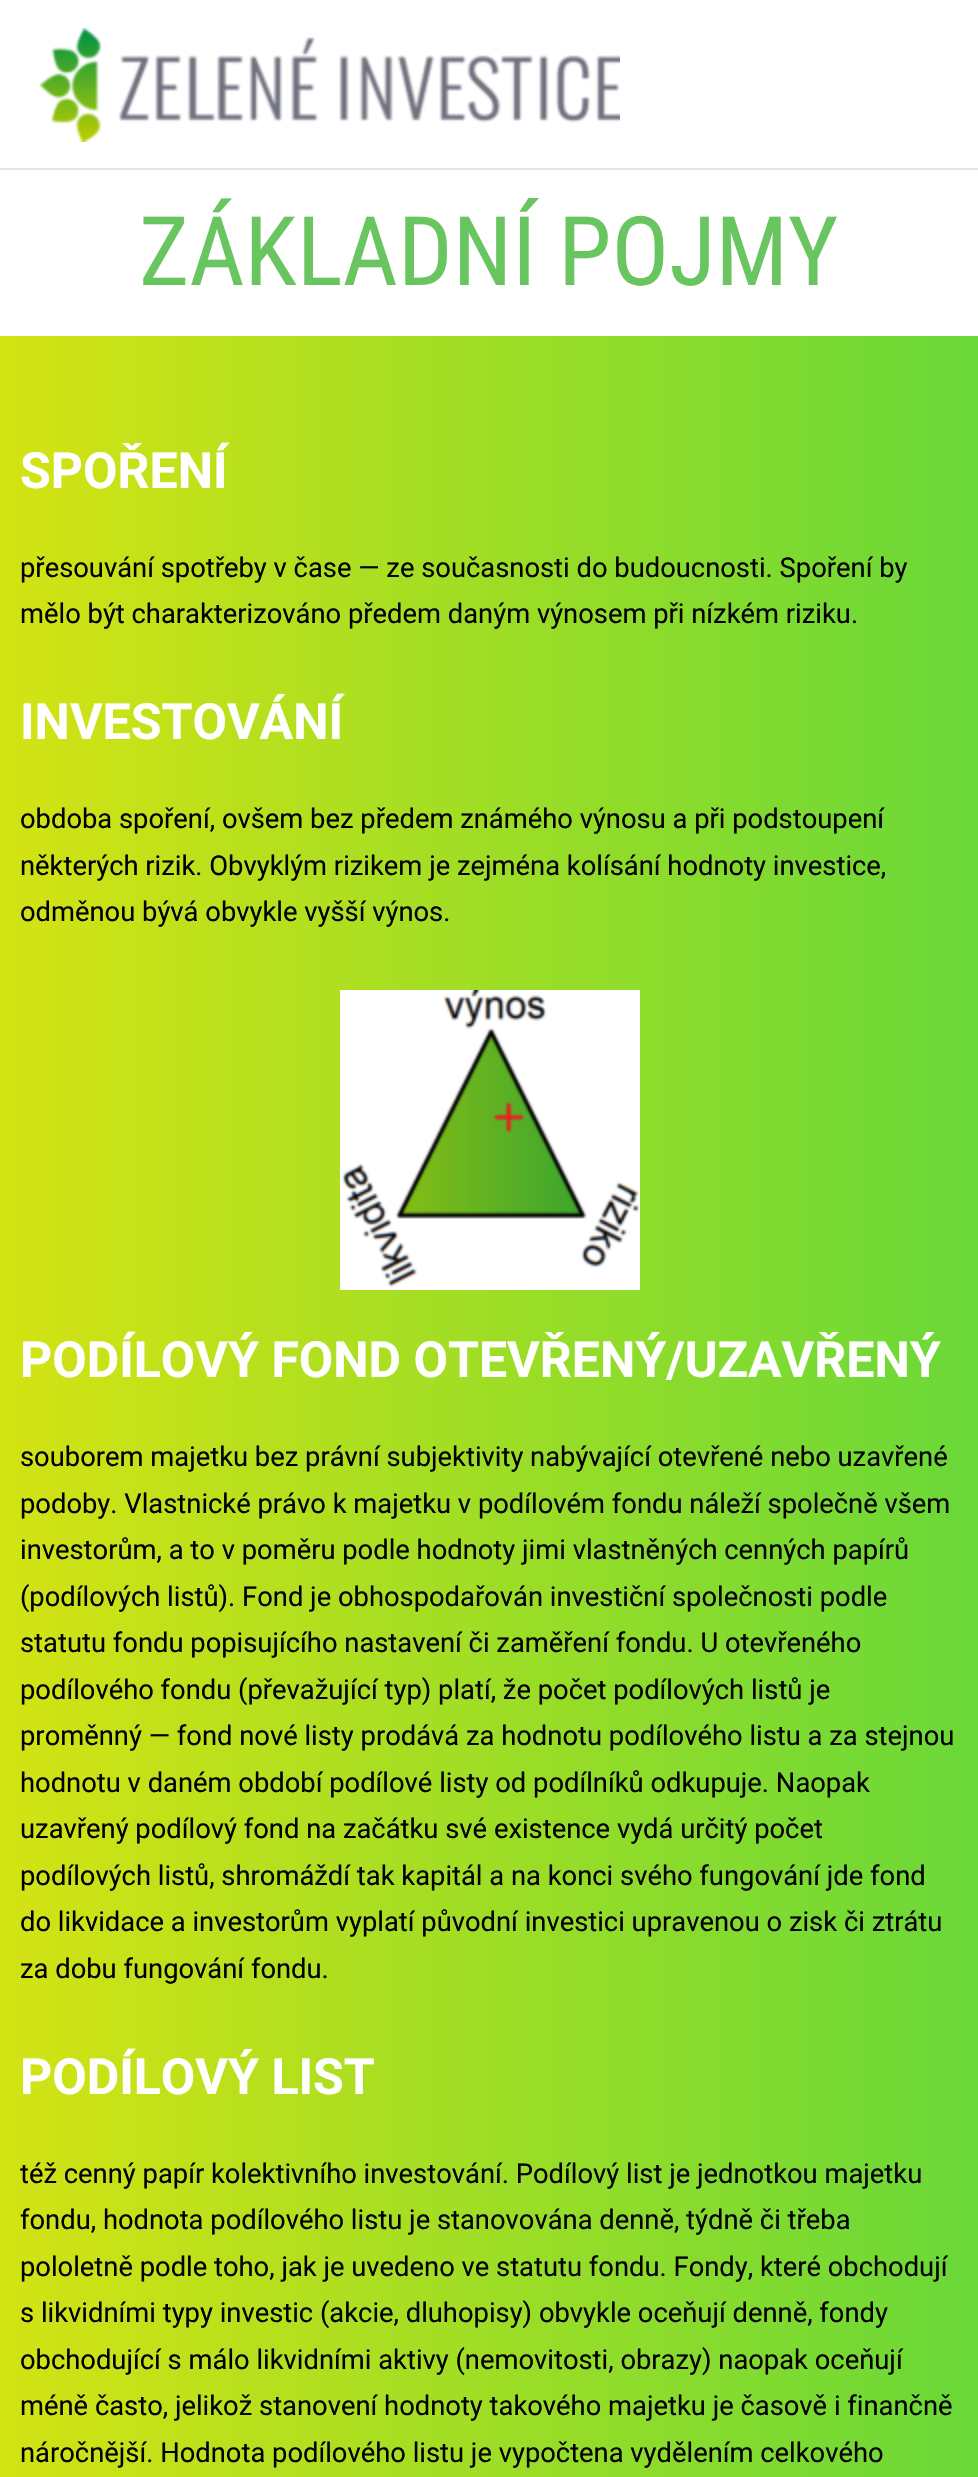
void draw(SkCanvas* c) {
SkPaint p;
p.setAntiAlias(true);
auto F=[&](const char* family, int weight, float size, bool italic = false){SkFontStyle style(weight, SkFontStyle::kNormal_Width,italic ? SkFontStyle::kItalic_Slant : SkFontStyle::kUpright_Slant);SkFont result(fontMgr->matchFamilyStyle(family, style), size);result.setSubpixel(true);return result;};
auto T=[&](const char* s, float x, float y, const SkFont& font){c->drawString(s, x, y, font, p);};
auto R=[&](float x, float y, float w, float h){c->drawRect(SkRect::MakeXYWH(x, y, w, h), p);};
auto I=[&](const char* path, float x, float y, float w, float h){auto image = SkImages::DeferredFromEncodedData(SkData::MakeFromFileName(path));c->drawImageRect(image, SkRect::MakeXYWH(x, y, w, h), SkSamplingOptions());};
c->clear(0xffffffff);
p.setColor(0xffe5e5e5);
R(0,168,978,2);
I("1.png",40,28,580,114);
auto f1 = F("Roboto Condensed",400,96);
p.setColor(0xff69c55f);
T("ZÁKLADNÍ POJMY",139,285,f1);
{
const SkColor colors[] = {0xffd4e313,0xff69d838};
const float stops[] = {0,1};
const SkPoint ends[] = {{0,1535}, {978,1535}};
p.setShader(SkGradientShader::MakeLinear(ends, colors, stops, 2, SkTileMode::kClamp));
p.setAlpha(255);
}
R(0,336,978,2141);
auto f2 = F("Roboto",700,50);
p.setShader(nullptr);
p.setColor(0xffffffff);
T("SPOŘENÍ",20,488,f2);
auto f3 = F("Roboto",400,27.35);
p.setColor(0xff000000);
T("přesouvání spotřeby v čase — ze současnosti do budoucnosti. Spoření by",20,577,f3);
T("mělo být charakterizováno předem daným výnosem při nízkém riziku.",20,623,f3);
p.setColor(0xffffffff);
T("INVESTOVÁNÍ",20,739,f2);
p.setColor(0xff000000);
T("obdoba spoření, ovšem bez předem známého výnosu a při podstoupení",20,828,f3);
T("některých rizik. Obvyklým rizikem je zejména kolísání hodnoty investice,",20,875,f3);
T("odměnou bývá obvykle vyšší výnos.",20,921,f3);
I("2.png",340,990,300,300);
p.setColor(0xffffffff);
T("PODÍLOVÝ FOND OTEVŘENÝ/UZAVŘENÝ",20,1377,f2);
p.setColor(0xff000000);
T("souborem majetku bez právní subjektivity nabývající otevřené nebo uzavřené",20,1466,f3);
T("podoby. Vlastnické právo k majetku v podílovém fondu náleží společně všem",20,1513,f3);
T("investorům, a to v poměru podle hodnoty jimi vlastněných cenných papírů",20,1559,f3);
T("(podílových listů). Fond je obhospodařován investiční společnosti podle",20,1606,f3);
T("statutu fondu popisujícího nastavení či zaměření fondu. U otevřeného",20,1652,f3);
T("podílového fondu (převažující typ) platí, že počet podílových listů je",20,1699,f3);
T("proměnný — fond nové listy prodává za hodnotu podílového listu a za stejnou",20,1745,f3);
T("hodnotu v daném období podílové listy od podílníků odkupuje. Naopak",20,1792,f3);
T("uzavřený podílový fond na začátku své existence vydá určitý počet",20,1838,f3);
T("podílových listů, shromáždí tak kapitál a na konci svého fungování jde fond",20,1885,f3);
T("do likvidace a investorům vyplatí původní investici upravenou o zisk či ztrátu",20,1931,f3);
T("za dobu fungování fondu.",20,1978,f3);
p.setColor(0xffffffff);
T("PODÍLOVÝ LIST",20,2094,f2);
p.setColor(0xff000000);
T("též cenný papír kolektivního investování. Podílový list je jednotkou majetku",20,2183,f3);
T("fondu, hodnota podílového listu je stanovována denně, týdně či třeba",20,2229,f3);
T("pololetně podle toho, jak je uvedeno ve statutu fondu. Fondy, které obchodují",20,2276,f3);
T("s likvidními typy investic (akcie, dluhopisy) obvykle oceňují denně, fondy",20,2322,f3);
T("obchodující s málo likvidními aktivy (nemovitosti, obrazy) naopak oceňují",20,2369,f3);
T("méně často, jelikož stanovení hodnoty takového majetku je časově i finančně",20,2415,f3);
T("náročnější. Hodnota podílového listu je vypočtena vydělením celkového",20,2462,f3);
}
